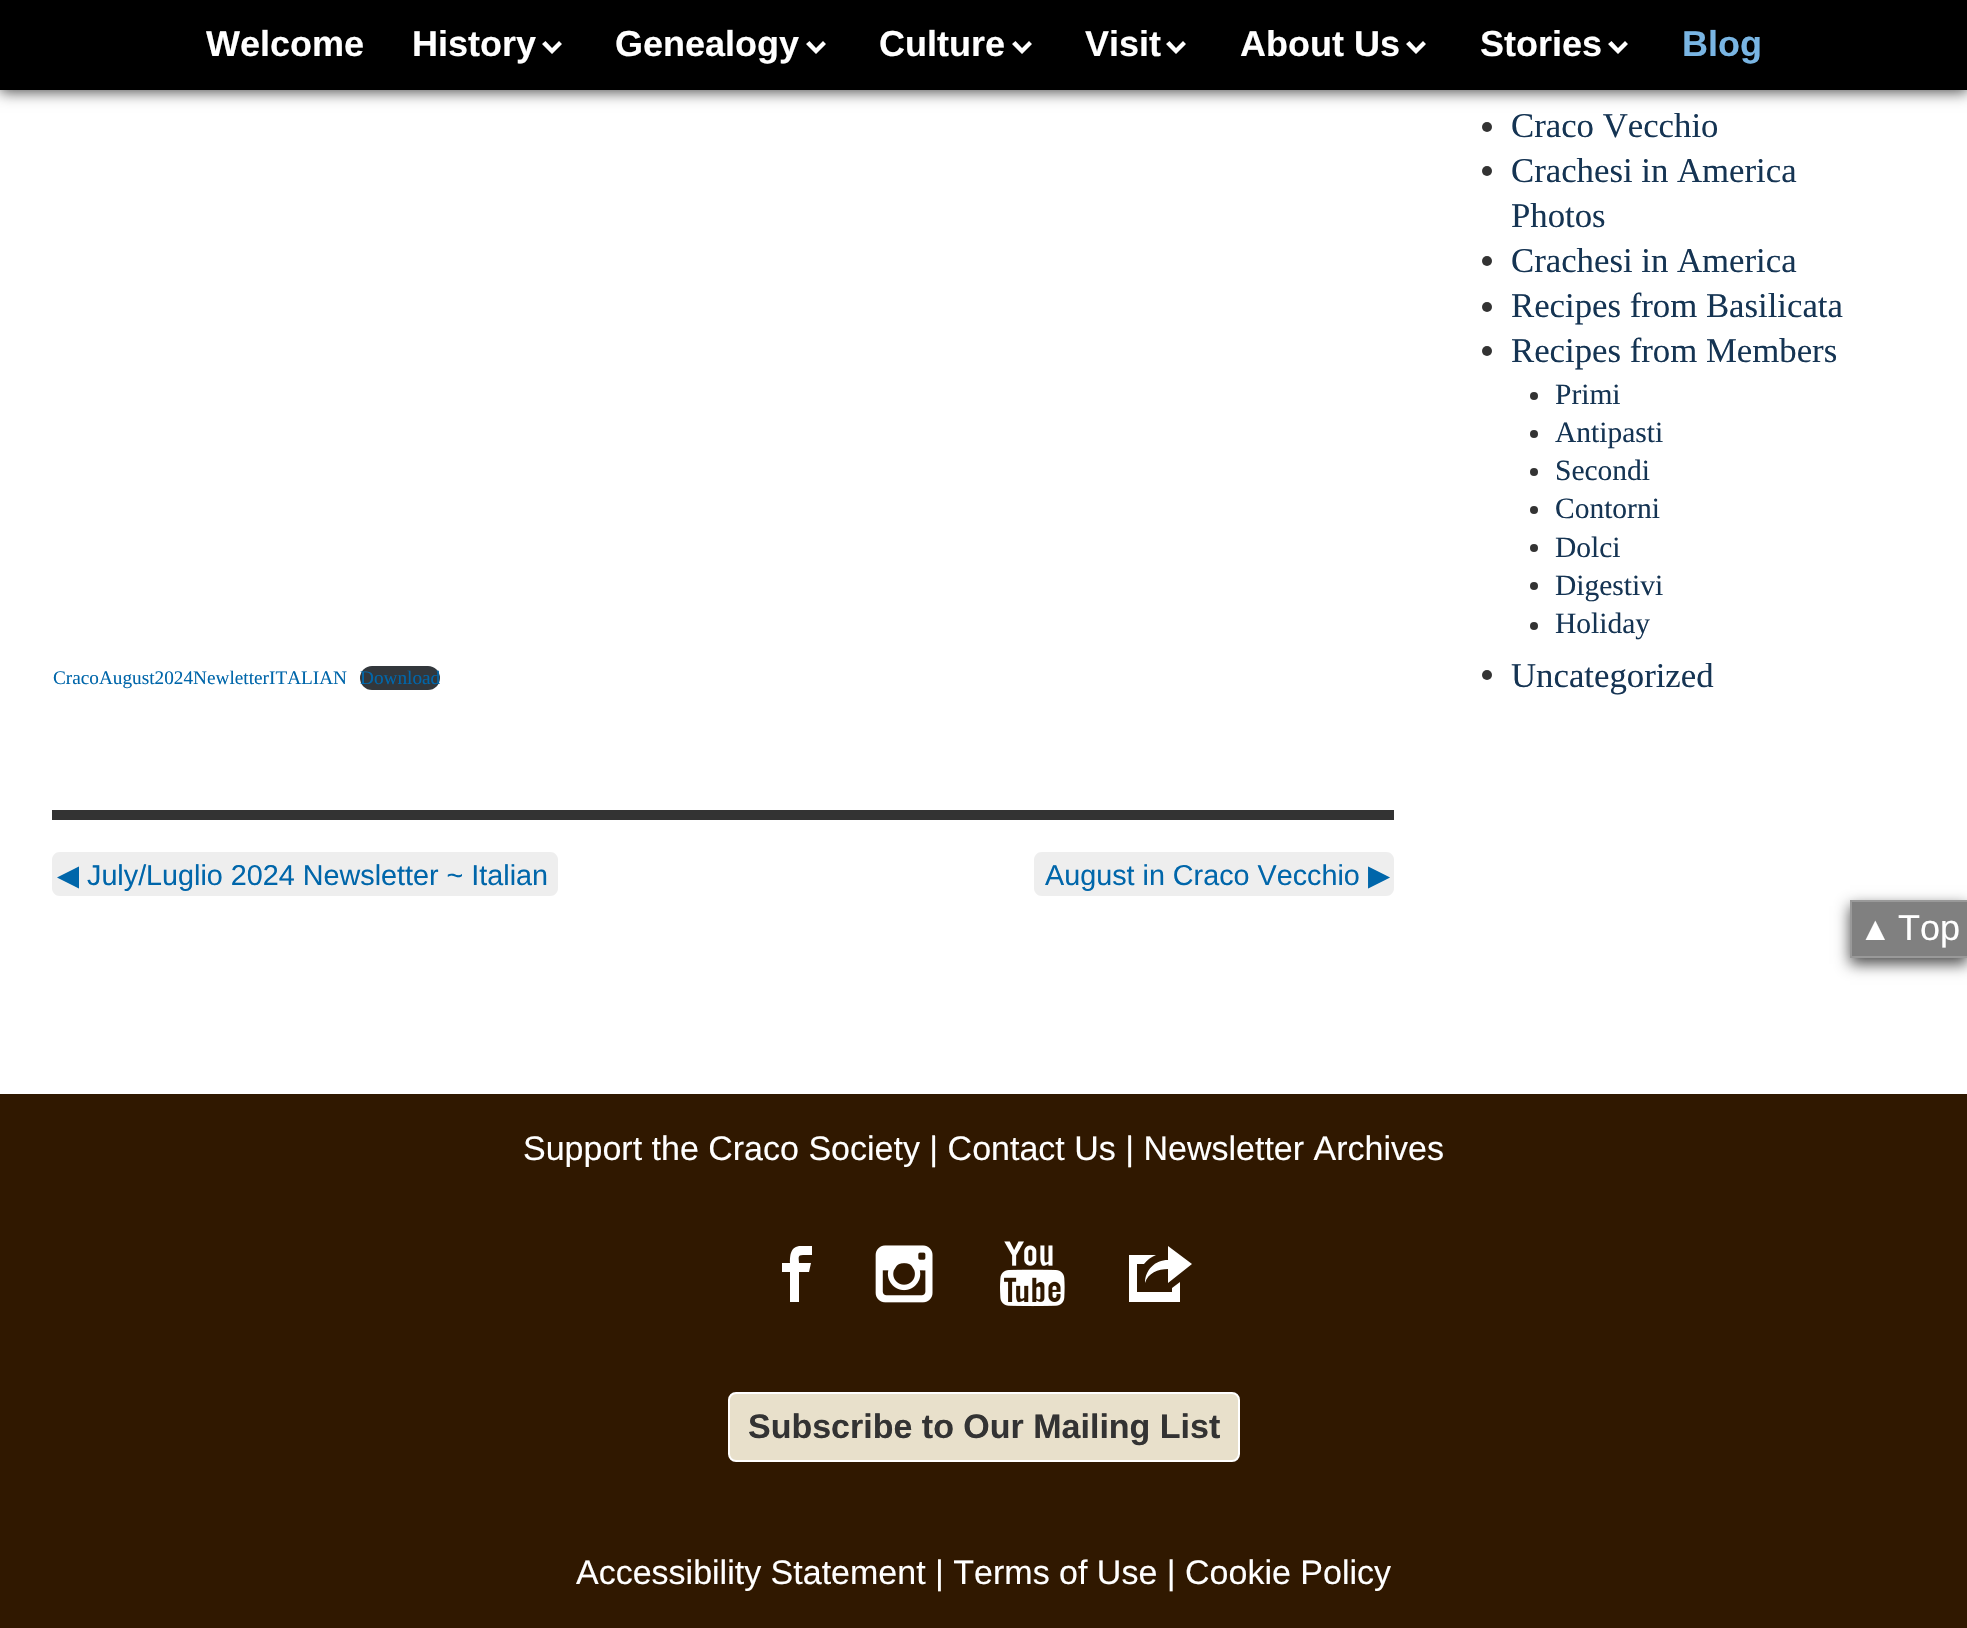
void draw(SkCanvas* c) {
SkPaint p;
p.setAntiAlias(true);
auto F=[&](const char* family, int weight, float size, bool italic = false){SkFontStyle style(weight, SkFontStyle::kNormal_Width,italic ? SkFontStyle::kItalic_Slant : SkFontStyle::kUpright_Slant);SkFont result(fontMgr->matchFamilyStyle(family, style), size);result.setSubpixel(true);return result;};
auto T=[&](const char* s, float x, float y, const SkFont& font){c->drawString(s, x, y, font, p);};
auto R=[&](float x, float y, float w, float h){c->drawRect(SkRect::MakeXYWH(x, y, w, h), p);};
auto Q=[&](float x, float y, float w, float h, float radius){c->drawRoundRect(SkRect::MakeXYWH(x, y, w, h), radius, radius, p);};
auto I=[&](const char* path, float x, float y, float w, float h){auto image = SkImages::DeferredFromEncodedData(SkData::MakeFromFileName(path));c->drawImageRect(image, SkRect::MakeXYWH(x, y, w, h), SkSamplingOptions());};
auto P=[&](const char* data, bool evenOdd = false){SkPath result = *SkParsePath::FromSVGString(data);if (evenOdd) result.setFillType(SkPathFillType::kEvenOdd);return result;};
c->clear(0xffffffff);
p.setColor(0xb3000000);
p.setMaskFilter(SkMaskFilter::MakeBlur(kNormal_SkBlurStyle, 7));
c->drawRect(SkRect::MakeXYWH(0,2,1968,90),p);
p.setMaskFilter(nullptr);
p.setColor(0xff000000);
R(0,0,1967,90);
auto f1 = F("Liberation Sans",700,36);
p.setColor(0xffffffff);
T("Welcome",206,56,f1);
T("History",412,56,f1);
c->drawPath(P("M545.5 41l-3.5 3l10 10l10-10l-3-3l-7 7z"),p);
T("Genealogy",615,56,f1);
c->drawPath(P("M809.5 41l-3.5 3l10 10l10-10l-3-3l-7 7z"),p);
T("Culture",879,56,f1);
c->drawPath(P("M1015.5 41l-3.5 3l10 10l10-10l-3-3l-7 7z"),p);
T("Visit",1085,56,f1);
c->drawPath(P("M1169.5 41l-3.5 3l10 10l10-10l-3-3l-7 7z"),p);
T("About Us",1240,56,f1);
c->drawPath(P("M1409.5 41l-3.5 3l10 10l10-10l-3-3l-7 7z"),p);
T("Stories",1480,56,f1);
c->drawPath(P("M1611.5 41l-3.5 3l10 10l10-10l-3-3l-7 7z"),p);
p.setColor(0xff79b5e3);
T("Blog",1682,56,f1);
p.setColor(0xff333333);
c->drawCircle(1487,127,5,p);
auto f2 = F("Tinos",400,34.75);
p.setColor(0xff153453);
T("Craco Vecchio",1511,137,f2);
p.setColor(0xff333333);
c->drawCircle(1487,171,5,p);
p.setColor(0xff153453);
T("Crachesi in America",1511,182,f2);
T("Photos",1511,227,f2);
p.setColor(0xff333333);
c->drawCircle(1487,261,5,p);
p.setColor(0xff153453);
T("Crachesi in America",1511,272,f2);
p.setColor(0xff333333);
c->drawCircle(1487,307,5,p);
p.setColor(0xff153453);
T("Recipes from Basilicata",1511,317,f2);
p.setColor(0xff333333);
c->drawCircle(1487,351,5,p);
p.setColor(0xff153453);
T("Recipes from Members",1511,362,f2);
p.setColor(0xff333333);
c->drawCircle(1534,396,4,p);
auto f3 = F("Tinos",400,29.5);
p.setColor(0xff153453);
T("Primi",1555,404,f3);
p.setColor(0xff333333);
c->drawCircle(1534,434,4,p);
p.setColor(0xff153453);
T("Antipasti",1555,442,f3);
p.setColor(0xff333333);
c->drawCircle(1534,472,4,p);
p.setColor(0xff153453);
T("Secondi",1555,480,f3);
p.setColor(0xff333333);
c->drawCircle(1534,510,4,p);
p.setColor(0xff153453);
T("Contorni",1555,518,f3);
p.setColor(0xff333333);
c->drawCircle(1534,548,4,p);
p.setColor(0xff153453);
T("Dolci",1555,557,f3);
p.setColor(0xff333333);
c->drawCircle(1534,586,4,p);
p.setColor(0xff153453);
T("Digestivi",1555,595,f3);
p.setColor(0xff333333);
c->drawCircle(1534,626,4,p);
p.setColor(0xff153453);
T("Holiday",1555,633,f3);
p.setColor(0xff333333);
c->drawCircle(1487,675,5,p);
p.setColor(0xff153453);
T("Uncategorized",1511,687,f2);
p.setColor(0xff333333);
R(52,810,1342,10);
auto f4 = F("Tinos",400,19.25);
p.setColor(0xff0066aa);
T("CracoAugust2024NewletterITALIAN",53,684,f4);
p.setColor(0xff32373c);
Q(360,666,80,24,12);
p.setColor(0xff0066aa);
T("Download",360,684,f4);
p.setColor(0xffeeeeee);
c->drawPath(P("M60 852h18v44h-18c-4.5 0-8-3.5-8-8v-28c0-4.5 3.5-8 8-8z"),p);
c->drawPath(P("M78 852h472c4.5 0 8 3.5 8 8v28c0 4.5-3.5 8-8 8h-472z"),p);
auto f5 = F("DejaVu Sans",400,28.75);
p.setColor(0xff0066aa);
T("◀",57,885,f5);
auto f6 = F("Liberation Sans",400,28.75);
T("July/Luglio 2024 Newsletter ~ Italian",87,885,f6);
p.setColor(0xffeeeeee);
c->drawPath(P("M1042 852h326v44h-326c-4.5 0-8-3.5-8-8v-28c0-4.5 3.5-8 8-8z"),p);
p.setColor(0xff0066aa);
T("August in Craco Vecchio",1045,885,f6);
p.setColor(0xffeeeeee);
c->drawPath(P("M1368 852h18c4.5 0 8 3.5 8 8v28c0 4.5-3.5 8-8 8h-18z"),p);
p.setColor(0xff0066aa);
T("▶",1368,885,f5);
p.setColor(0xb3000000);
p.setMaskFilter(SkMaskFilter::MakeBlur(kNormal_SkBlurStyle, 7));
c->drawRect(SkRect::MakeXYWH(1850,906,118,58),p);
p.setMaskFilter(nullptr);
p.setColor(0xff808080);
R(1852,902,115,54);
p.setColor(0xff999999);
R(1850,900,117,2);
R(1850,956,117,2);
R(1850,900,2,58);
auto f7 = F("Liberation Sans",400,33);
p.setColor(0xffffffff);
T("▲",1859,940,f7);
auto f8 = F("Liberation Sans",400,36);
T("Top",1898,940,f8);
p.setColor(0xff301800);
R(0,1094,1967,534);
auto f9 = F("Liberation Sans",400,34);
p.setColor(0xffffffff);
T("Support the Craco Society | Contact Us | Newsletter Archives",523,1160,f9);
c->drawPath(P("M801 1246c-11 0-11 10-11 17h-8v9h8v30h9v-30h10l2-9h-12c0-5-2-8 4-8h9v-9z"),p);
I("1.png",875,1245,58,58);
I("2.png",1000,1241,65,66);
c->drawPath(P("M1145 1283c3-10 13-14 23-14v14l24-19l-24-18v14c-13 0-23 10-23 23zm27 9h-35v-28h7c3-4 7-7 12-9h-27v47h51v-20l-8 6z"),p);
p.setColor(0xffe8e0cb);
c->drawRoundRect(SkRect::MakeXYWH(729,1393,510,68),7,7,p);
p.setStroke(true);
p.setStrokeWidth(2);
p.setColor(0xffffffff);
c->drawRoundRect(SkRect::MakeXYWH(729,1393,510,68),7,7,p);
auto f10 = F("Liberation Sans",700,34);
p.setStroke(false);
p.setColor(0xff333333);
T("Subscribe to Our Mailing List",748,1438,f10);
p.setColor(0xffffffff);
T("Accessibility Statement | Terms of Use | Cookie Policy",576,1584,f9);
}
